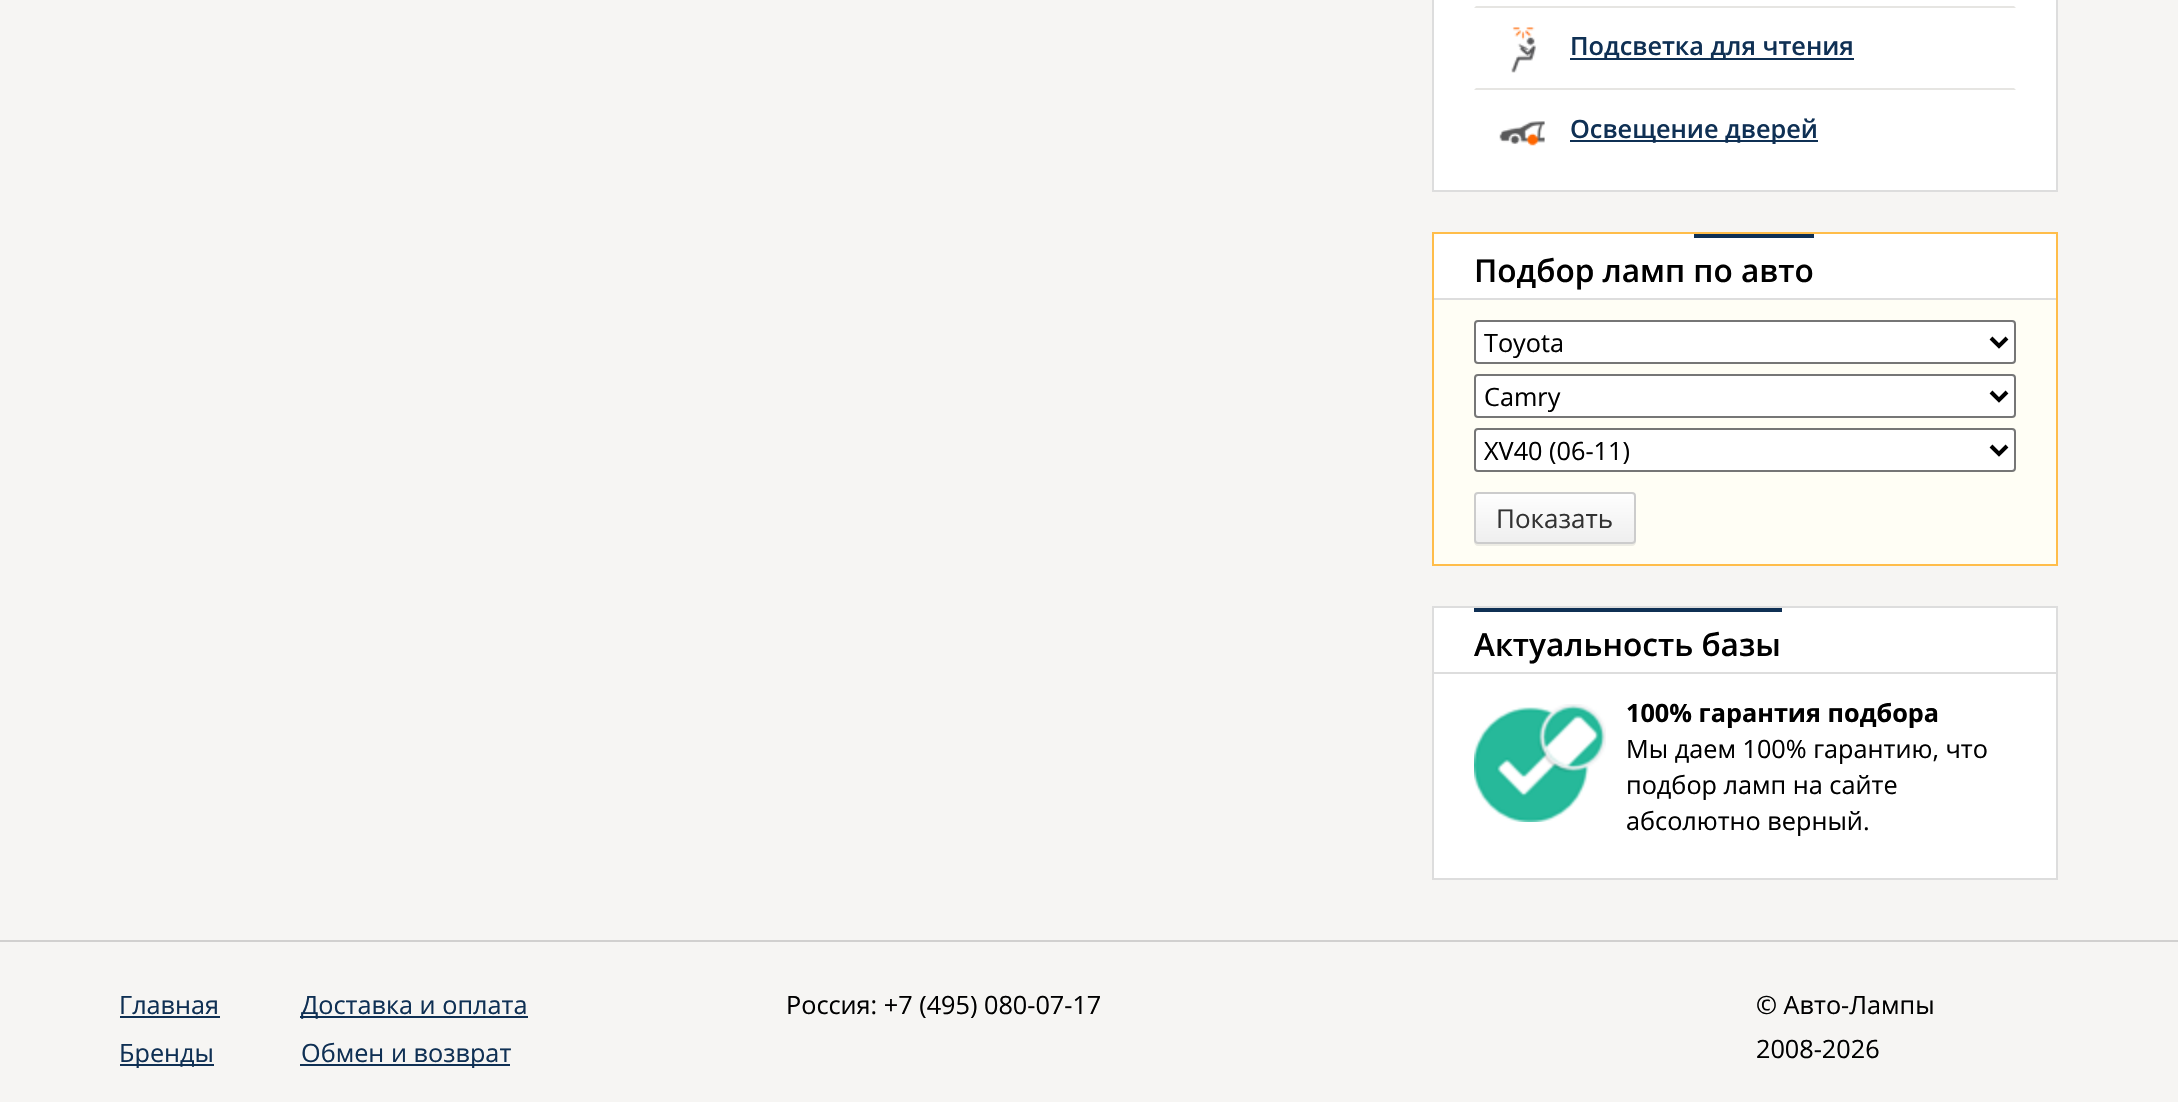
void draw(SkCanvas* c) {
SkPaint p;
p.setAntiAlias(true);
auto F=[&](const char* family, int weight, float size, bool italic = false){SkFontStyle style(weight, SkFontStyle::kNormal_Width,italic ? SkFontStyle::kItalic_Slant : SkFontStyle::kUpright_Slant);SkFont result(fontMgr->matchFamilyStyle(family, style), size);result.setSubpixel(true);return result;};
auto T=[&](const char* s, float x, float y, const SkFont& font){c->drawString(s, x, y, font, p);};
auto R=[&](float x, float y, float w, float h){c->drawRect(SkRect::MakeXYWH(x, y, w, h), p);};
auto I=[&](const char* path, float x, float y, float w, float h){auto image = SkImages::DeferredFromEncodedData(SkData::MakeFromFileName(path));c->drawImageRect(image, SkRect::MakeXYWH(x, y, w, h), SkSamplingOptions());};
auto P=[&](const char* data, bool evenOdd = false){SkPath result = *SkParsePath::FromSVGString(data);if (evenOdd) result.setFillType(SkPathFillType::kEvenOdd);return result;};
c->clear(0xfff6f5f3);
p.setColor(0xffffffff);
c->drawRect(SkRect::MakeXYWH(1433,-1,624,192),p);
p.setStroke(true);
p.setStrokeWidth(2);
p.setColor(0xffdddddd);
c->drawRect(SkRect::MakeXYWH(1433,-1,624,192),p);
p.setStroke(false);
p.setColor(0xffe6e5e2);
c->drawPath(P("M2016 8h-542l2-2h538z"),p);
c->drawPath(P("M2016 90h-542l2-2h538z"),p);
I("1.png",1511,27,25,46);
p.setColor(0xff0f3054);
R(1570,58,284,2);
auto f1 = F("Open Sans",600,25.25);
T("Подсветка для чтения",1570,55,f1);
I("2.png",1499,121,46,25);
R(1570,140,248,2);
T("Освещение дверей",1570,138,f1);
p.setColor(0xfffffef5);
c->drawRect(SkRect::MakeXYWH(1433,233,624,332),p);
p.setStroke(true);
p.setColor(0xffffbd4a);
c->drawRect(SkRect::MakeXYWH(1433,233,624,332),p);
p.setStroke(false);
p.setColor(0xffffffff);
c->drawPath(P("M1440 234h610c3.5 0 6 2.5 6 6v60h-622v-60c0-3.5 2.5-6 6-6z"),p);
p.setColor(0xffdddddd);
R(1434,298,622,2);
p.setColor(0xff0f3054);
R(1694,234,120,4);
auto f2 = F("Open Sans",600,31.6);
p.setColor(0xff000000);
T("Подбор ламп по авто",1474,282,f2);
p.setColor(0xffffffff);
c->drawRoundRect(SkRect::MakeXYWH(1475,321,540,42),3,3,p);
p.setStroke(true);
p.setColor(0xff767676);
c->drawRoundRect(SkRect::MakeXYWH(1475,321,540,42),3,3,p);
p.setStrokeWidth(4);
p.setColor(0xff000000);
c->drawPath(P("M1991 338l8 8l8-8"),p);
auto f3 = F("Open Sans",400,25.25);
p.setStroke(false);
T("Toyota",1484,352,f3);
p.setColor(0xffffffff);
c->drawRoundRect(SkRect::MakeXYWH(1475,375,540,42),3,3,p);
p.setStroke(true);
p.setStrokeWidth(2);
p.setColor(0xff767676);
c->drawRoundRect(SkRect::MakeXYWH(1475,375,540,42),3,3,p);
p.setStrokeWidth(4);
p.setColor(0xff000000);
c->drawPath(P("M1991 392l8 8l8-8"),p);
p.setStroke(false);
T("Camry",1484,406,f3);
p.setColor(0xffffffff);
c->drawRoundRect(SkRect::MakeXYWH(1475,429,540,42),3,3,p);
p.setStroke(true);
p.setStrokeWidth(2);
p.setColor(0xff767676);
c->drawRoundRect(SkRect::MakeXYWH(1475,429,540,42),3,3,p);
p.setStrokeWidth(4);
p.setColor(0xff000000);
c->drawPath(P("M1991 446l8 8l8-8"),p);
p.setStroke(false);
T("XV40 (06-11)",1484,460,f3);
p.setColor(0xffedece4);
c->drawPath(P("M1474 540v2c0 2 2 4 4 4h154c2 0 4-2 4-4v-2c0 2-2 4-4 4h-154c-2 0-4-2-4-4z"),p);
c->save();
c->clipPath(P("M1478 492h154c2 0 4 2 4 4v44c0 2-2 4-4 4h-154c-2 0-4-2-4-4v-44c0-2 2-4 4-4z"),true);
{
const SkColor colors[] = {0xfffefefe,0xffefefef};
const float stops[] = {0,1};
const SkPoint ends[] = {{1555,494}, {1555,542}};
p.setShader(SkGradientShader::MakeLinear(ends, colors, stops, 2, SkTileMode::kClamp));
p.setAlpha(255);
}
R(1474,494,162,48);
c->restore();
p.setStroke(true);
p.setStrokeWidth(2);
p.setShader(nullptr);
p.setColor(0xffcccccc);
c->drawRoundRect(SkRect::MakeXYWH(1475,493,160,50),3,3,p);
auto f4 = F("Open Sans",400,26);
p.setStroke(false);
p.setColor(0xff333333);
T("Показать",1496,528,f4);
p.setColor(0xffffffff);
c->drawRect(SkRect::MakeXYWH(1433,607,624,272),p);
p.setStroke(true);
p.setColor(0xffdddddd);
c->drawRect(SkRect::MakeXYWH(1433,607,624,272),p);
p.setStroke(false);
R(1434,672,622,2);
p.setColor(0xff0f3054);
R(1474,608,308,4);
p.setColor(0xff000000);
T("Актуальность базы",1474,656,f2);
I("3.png",1474,704,132,118);
auto f5 = F("Open Sans",700,25.25);
T("100% гарантия подбора",1626,722,f5);
T("Мы даем 100% гарантию, что",1626,758,f3);
T("подбор ламп на сайте",1626,794,f3);
T("абсолютно верный.",1626,830,f3);
p.setColor(0xffd1d0cf);
R(0,940,2178,2);
p.setColor(0xff0f3054);
T("Главная",119,1014,f3);
R(120,1016,100,2);
R(120,1064,94,2);
T("Бренды",119,1062,f3);
R(300,1016,228,2);
T("Доставка и оплата",301,1014,f3);
R(300,1064,210,2);
T("Обмен и возврат",301,1062,f3);
p.setColor(0xff000000);
T("Россия: +7 (495) 080-07-17",786,1014,f3);
T("© Авто-Лампы",1756,1014,f3);
T("2008-2026",1756,1058,f3);
}
